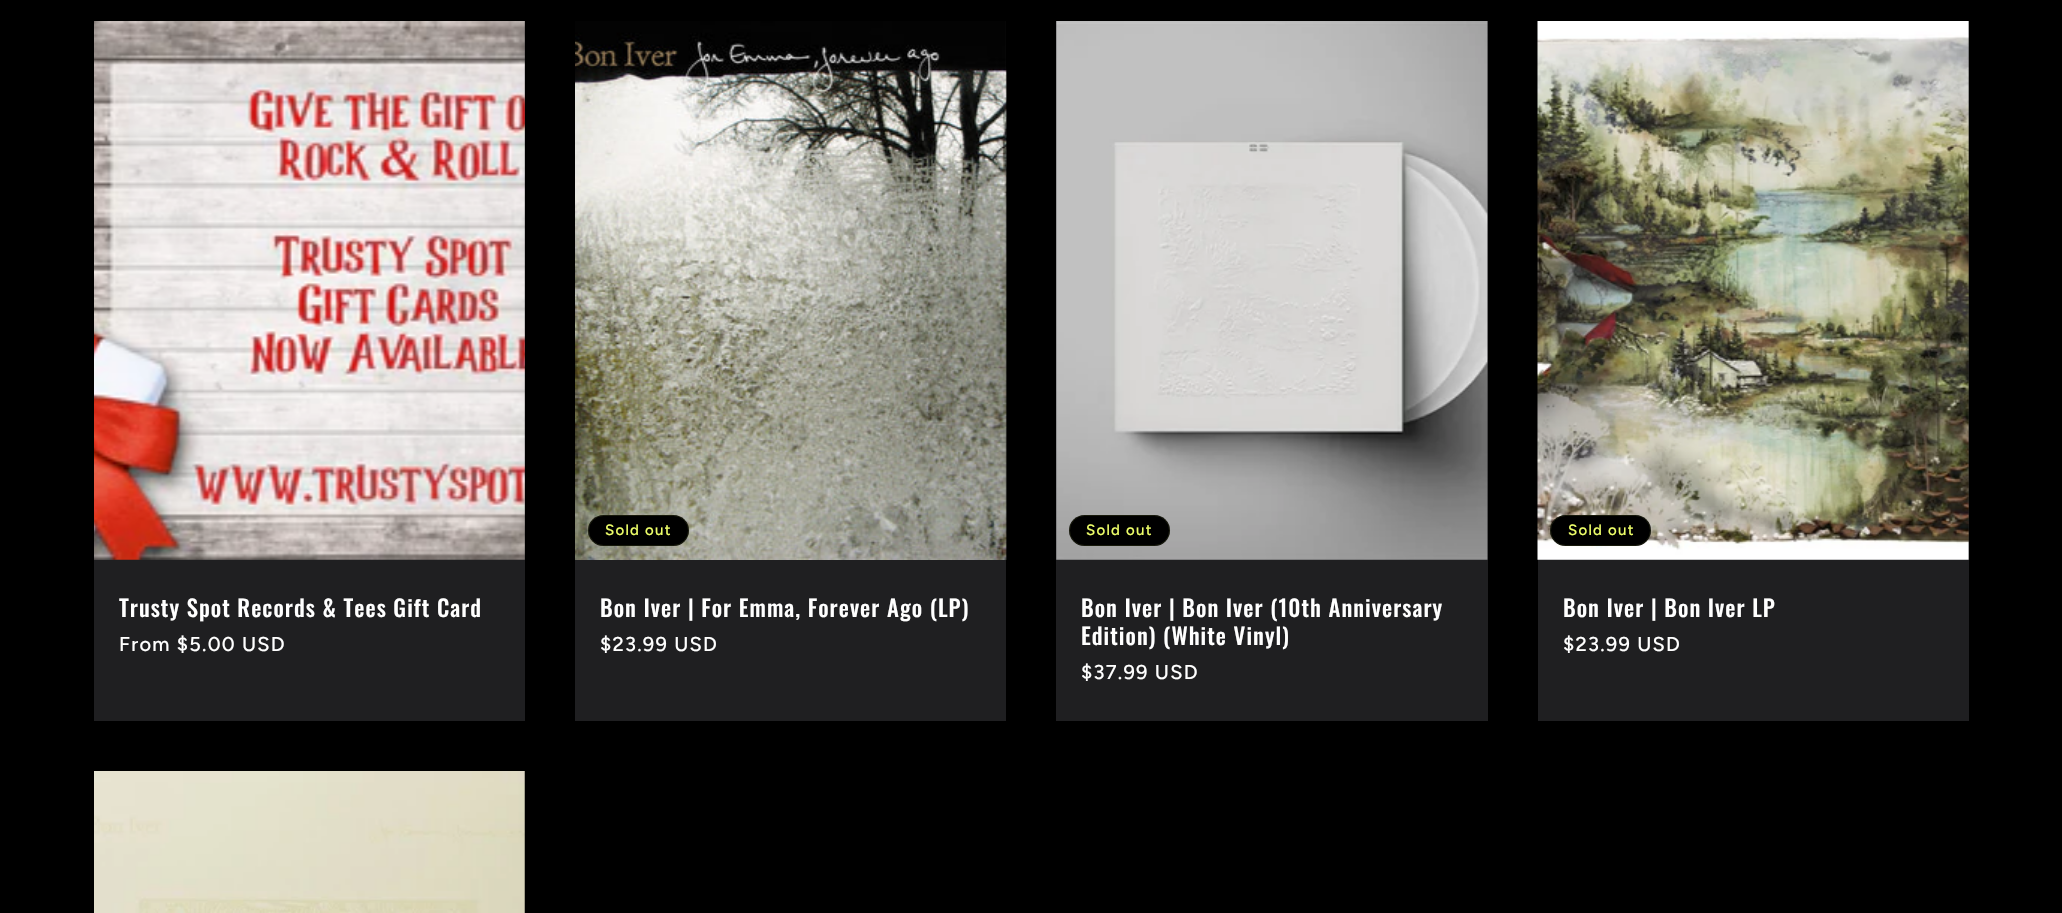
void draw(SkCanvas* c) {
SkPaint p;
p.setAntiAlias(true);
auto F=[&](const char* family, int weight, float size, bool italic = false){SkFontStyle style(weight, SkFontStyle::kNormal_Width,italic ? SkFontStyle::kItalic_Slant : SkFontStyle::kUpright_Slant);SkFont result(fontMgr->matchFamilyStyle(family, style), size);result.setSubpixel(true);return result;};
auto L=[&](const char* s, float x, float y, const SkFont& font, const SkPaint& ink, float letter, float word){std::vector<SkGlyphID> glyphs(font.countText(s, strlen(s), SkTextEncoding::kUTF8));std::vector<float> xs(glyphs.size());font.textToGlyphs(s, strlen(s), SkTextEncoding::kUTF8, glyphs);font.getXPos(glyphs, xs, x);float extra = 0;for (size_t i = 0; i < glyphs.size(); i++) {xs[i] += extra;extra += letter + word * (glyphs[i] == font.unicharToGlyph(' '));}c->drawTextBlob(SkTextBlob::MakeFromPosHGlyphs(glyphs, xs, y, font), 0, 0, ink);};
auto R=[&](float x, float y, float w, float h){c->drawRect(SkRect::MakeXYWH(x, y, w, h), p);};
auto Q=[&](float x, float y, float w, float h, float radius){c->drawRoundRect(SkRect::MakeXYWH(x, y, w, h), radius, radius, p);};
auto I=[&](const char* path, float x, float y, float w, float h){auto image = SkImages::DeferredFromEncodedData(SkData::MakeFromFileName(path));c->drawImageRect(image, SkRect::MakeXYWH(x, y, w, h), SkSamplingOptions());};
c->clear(0xff000000);
p.setColor(0xff1f1f21);
R(94,21,431,700);
I("1.png",94,21,431,539);
auto f1 = F("Oswald",500,22.75);
p.setColor(0xffffffff);
L("Trusty Spot Records & Tees Gift Card",119,617,f1,p,1.05,0);
auto f2 = F("Figtree",500,20);
L("From $5.00 USD",119,651,f2,p,1.25,0);
p.setColor(0xff1f1f21);
R(575,21,431,700);
I("2.png",575,21,432,539);
p.setColor(0xff000000);
Q(588,515,101,31,15.5);
p.setStroke(true);
p.setStrokeWidth(1);
p.setColor(0x1aeeff69);
c->drawRoundRect(SkRect::MakeXYWH(588.5,515.5,100,30),15,15,p);
auto f3 = F("Figtree",500,15);
p.setStroke(false);
p.setColor(0xffeeff69);
L("Sold out",605,535,f3,p,1.25,0);
p.setColor(0xffffffff);
L("Bon Iver | For Emma, Forever Ago (LP)",600,617,f1,p,1.05,0);
L("$23.99 USD",600,651,f2,p,1.25,0);
p.setColor(0xff1f1f21);
R(1056,21,432,700);
I("3.png",1056,21,432,539);
p.setColor(0xff000000);
Q(1069,515,101,31,15.5);
p.setStroke(true);
p.setColor(0x1aeeff69);
c->drawRoundRect(SkRect::MakeXYWH(1069.5,515.5,100,30),15,15,p);
p.setStroke(false);
p.setColor(0xffeeff69);
L("Sold out",1086,535,f3,p,1.25,0);
p.setColor(0xffffffff);
L("Bon Iver | Bon Iver (10th Anniversary",1081,617,f1,p,1.05,0);
L("Edition) (White Vinyl)",1081,645,f1,p,1.05,0);
L("$37.99 USD",1081,679,f2,p,1.25,0);
p.setColor(0xff1f1f21);
R(1538,21,431,700);
I("4.png",1537,21,432,539);
p.setColor(0xff000000);
Q(1550,515,101,31,15.5);
p.setStroke(true);
p.setColor(0x1aeeff69);
c->drawRoundRect(SkRect::MakeXYWH(1550.5,515.5,100,30),15,15,p);
p.setStroke(false);
p.setColor(0xffeeff69);
L("Sold out",1568,535,f3,p,1.25,0);
p.setColor(0xffffffff);
L("Bon Iver | Bon Iver LP",1563,617,f1,p,1.05,0);
L("$23.99 USD",1563,651,f2,p,1.25,0);
I("5.png",94,771,431,142);
}
